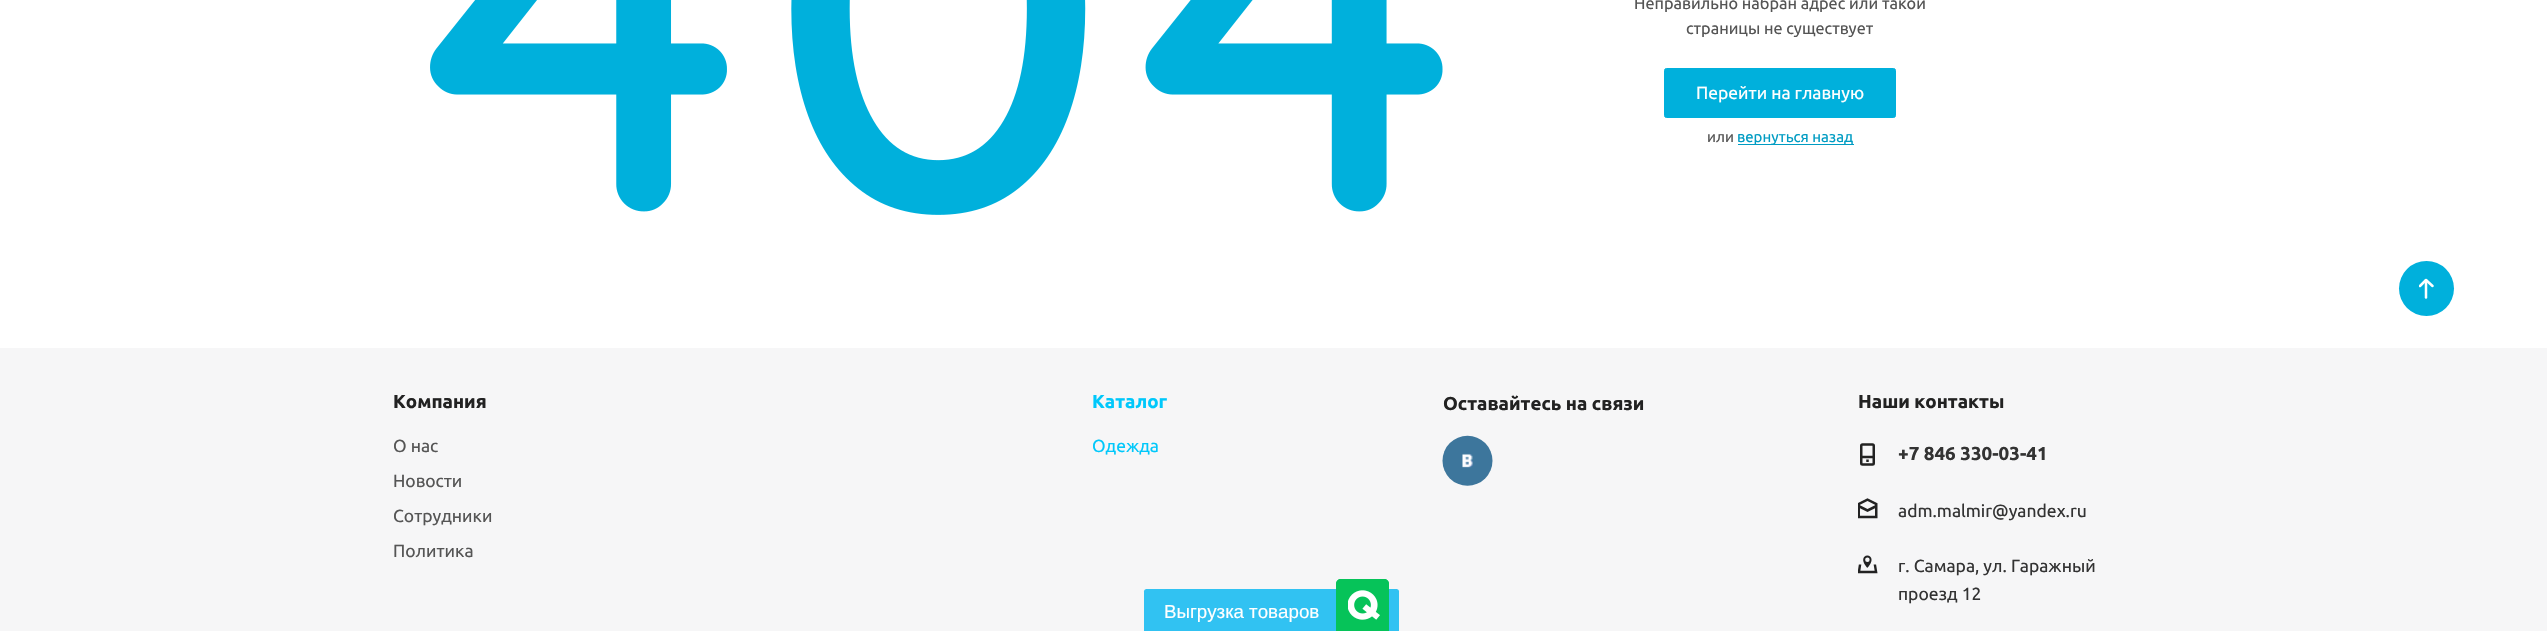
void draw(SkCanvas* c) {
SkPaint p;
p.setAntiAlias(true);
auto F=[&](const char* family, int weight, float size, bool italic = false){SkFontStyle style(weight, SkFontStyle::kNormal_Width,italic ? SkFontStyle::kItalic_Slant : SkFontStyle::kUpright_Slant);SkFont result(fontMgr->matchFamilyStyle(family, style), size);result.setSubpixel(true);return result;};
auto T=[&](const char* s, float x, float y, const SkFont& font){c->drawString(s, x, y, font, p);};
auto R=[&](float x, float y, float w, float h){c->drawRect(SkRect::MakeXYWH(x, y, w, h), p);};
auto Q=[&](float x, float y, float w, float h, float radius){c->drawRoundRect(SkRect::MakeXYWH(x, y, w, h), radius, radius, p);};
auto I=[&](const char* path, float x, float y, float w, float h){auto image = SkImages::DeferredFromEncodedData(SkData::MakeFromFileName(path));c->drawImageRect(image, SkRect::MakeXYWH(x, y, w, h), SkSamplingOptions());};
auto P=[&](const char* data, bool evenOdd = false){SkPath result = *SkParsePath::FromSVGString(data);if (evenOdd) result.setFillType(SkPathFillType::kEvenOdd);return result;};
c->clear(0xffffffff);
I("1.png",430,0,1013,215);
auto f1 = F("Ubuntu",400,16.25);
p.setColor(0xff555555);
T("Неправильно набран адрес или такой",1634,9,f1);
T("страницы не существует",1686,34,f1);
p.setColor(0xff00b0dc);
c->drawRoundRect(SkRect::MakeXYWH(1664.5,68.5,231,49),2,2,p);
p.setStroke(true);
p.setStrokeWidth(1);
c->drawRoundRect(SkRect::MakeXYWH(1664.5,68.5,231,49),2,2,p);
auto f2 = F("Ubuntu",400,17.5);
p.setStroke(false);
p.setColor(0xffffffff);
T("Перейти на главную",1696,99,f2);
auto f3 = F("Ubuntu",400,15);
p.setColor(0xff555555);
T("или",1707,142,f3);
p.setColor(0xff009cc3);
R(1738,144,116,1);
T("вернуться назад",1737,142,f3);
p.setColor(0xff00b0dc);
c->drawCircle(2426.5,288.5,27.5,p);
p.setStroke(true);
p.setStrokeWidth(2.5);
p.setStrokeCap(SkPaint::kRound_Cap);
p.setStrokeJoin(SkPaint::kRound_Join);
p.setColor(0xffffffff);
c->drawPath(P("M2426 280v17.5"),p);
c->save();
c->clipRect(SkRect::MakeXYWH(2419,279,15,125));
c->drawPath(P("M2420 286l6-6l6.5 6"),p);
c->restore();
p.setStroke(false);
p.setColor(0xfff6f6f7);
R(0,348,2547,283);
auto f4 = F("Ubuntu",700,18.75);
p.setColor(0xff222222);
T("Компания",393,408,f4);
p.setColor(0xff555555);
T("О нас",393,452,f2);
T("Новости",393,487,f2);
T("Сотрудники",393,522,f2);
T("Политика",393,557,f2);
p.setColor(0xff00c8fb);
T("Каталог",1092,408,f4);
T("Одежда",1092,452,f2);
p.setColor(0xff222222);
T("Оставайтесь на связи",1443,410,f4);
I("2.png",1442,435,51,51);
T("Наши контакты",1858,408,f4);
I("3.png",1860,443,15,23);
p.setColor(0xff333333);
T("+7 846 330-03-41",1898,460,f4);
I("4.png",1858,498,20,21);
T("adm.malmir@yandex.ru",1898,517,f2);
I("5.png",1858,555,20,19);
T("г. Самара, ул. Гаражный",1898,572,f2);
T("проезд 12",1898,600,f2);
p.setColor(0xff31c2f2);
c->drawPath(P("M1146.5 589h250c1.5 0 2.5 1 2.5 2.5v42.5h-255v-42.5c0-1.5 1-2.5 2.5-2.5z"),p);
auto f5 = F("Liberation Sans",400,18.75);
p.setColor(0xffffffff);
T("Выгрузка товаров",1164,618,f5);
p.setColor(0xff06c359);
c->drawPath(P("M1341 579h43c3 0 5 2 5 5v47h-53v-47c0-3 2-5 5-5z"),p);
Q(1336,579,53,52,5);
I("6.png",1348,590,32,30);
}
